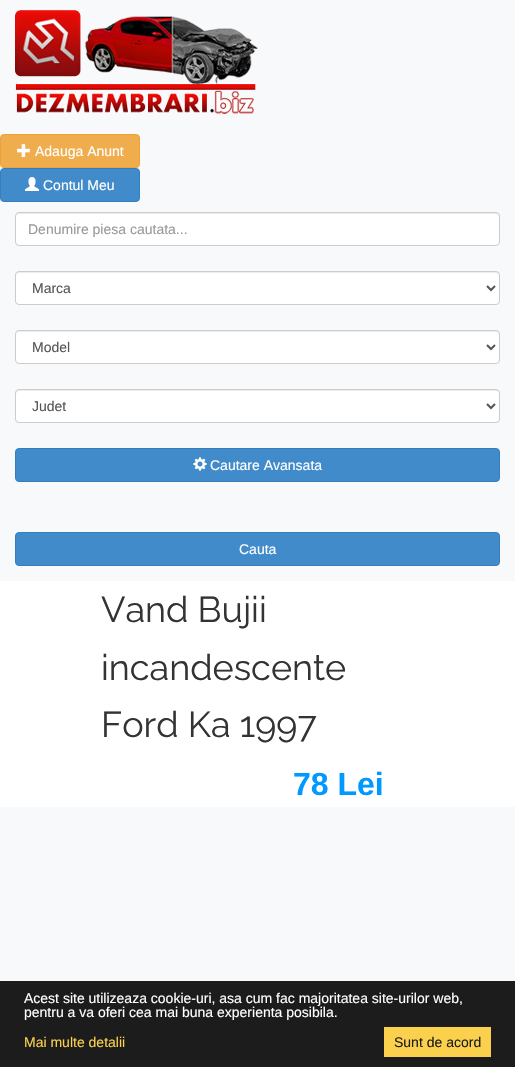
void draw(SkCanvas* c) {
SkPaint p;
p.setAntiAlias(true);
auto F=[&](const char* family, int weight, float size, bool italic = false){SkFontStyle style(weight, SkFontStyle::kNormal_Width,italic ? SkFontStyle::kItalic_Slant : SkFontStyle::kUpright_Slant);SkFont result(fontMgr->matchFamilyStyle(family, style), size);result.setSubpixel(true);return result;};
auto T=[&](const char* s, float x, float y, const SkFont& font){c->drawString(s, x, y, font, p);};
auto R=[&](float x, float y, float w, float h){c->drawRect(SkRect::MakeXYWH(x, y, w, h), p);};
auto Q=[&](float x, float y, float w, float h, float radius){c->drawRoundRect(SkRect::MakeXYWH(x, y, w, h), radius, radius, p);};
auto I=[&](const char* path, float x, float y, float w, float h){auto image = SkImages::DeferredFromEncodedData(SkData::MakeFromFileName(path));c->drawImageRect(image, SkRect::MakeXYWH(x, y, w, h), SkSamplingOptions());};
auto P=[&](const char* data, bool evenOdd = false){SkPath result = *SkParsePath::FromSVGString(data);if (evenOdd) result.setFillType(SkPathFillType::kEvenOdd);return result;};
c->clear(0xffffffff);
p.setColor(0xfff8f9fa);
R(0,0,515,581);
I("1.png",15,10,243,104);
p.setColor(0xfff0ad4e);
c->drawRoundRect(SkRect::MakeXYWH(.5,134.5,139,33),3.5,3.5,p);
p.setStroke(true);
p.setStrokeWidth(1);
p.setColor(0xffeea236);
c->drawRoundRect(SkRect::MakeXYWH(.5,134.5,139,33),3.5,3.5,p);
I("2.png",17,144,13,13);
auto f1 = F("Liberation Sans",400,14);
p.setStroke(false);
p.setColor(0xffffffff);
T("Adauga Anunt",35,156,f1);
p.setColor(0xff428bca);
c->drawRoundRect(SkRect::MakeXYWH(.5,168.5,139,33),3.5,3.5,p);
p.setStroke(true);
p.setColor(0xff357ebd);
c->drawRoundRect(SkRect::MakeXYWH(.5,168.5,139,33),3.5,3.5,p);
I("3.png",25,177,14,14);
p.setStroke(false);
p.setColor(0xffffffff);
T("Contul Meu",43,190,f1);
Q(16,213,483,32,3);
p.setColor(0x12000000);
c->drawPath(P("M19 214h477c2 0 3 1 3 3v-1c0-2-1-3-3-3h-477c-2 0-3 1-3 3v1c0-2 1-3 3-3z"),p);
p.setStroke(true);
p.setColor(0xffcccccc);
c->drawRoundRect(SkRect::MakeXYWH(15.5,212.5,484,33),3.5,3.5,p);
p.setStroke(false);
p.setColor(0xff999999);
T("Denumire piesa cautata...",28,234,f1);
p.setColor(0xffffffff);
Q(16,272,483,32,3);
p.setColor(0x12000000);
c->drawPath(P("M19 273h477c2 0 3 1 3 3v-1c0-2-1-3-3-3h-477c-2 0-3 1-3 3v1c0-2 1-3 3-3z"),p);
p.setStroke(true);
p.setColor(0xffcccccc);
c->drawRoundRect(SkRect::MakeXYWH(15.5,271.5,484,33),3.5,3.5,p);
p.setStrokeWidth(2);
p.setColor(0xff555555);
c->drawPath(P("M487 286l4 4l4-4"),p);
p.setStroke(false);
T("Marca",32,293,f1);
p.setColor(0xffffffff);
Q(16,331,483,32,3);
p.setColor(0x12000000);
c->drawPath(P("M19 332h477c2 0 3 1 3 3v-1c0-2-1-3-3-3h-477c-2 0-3 1-3 3v1c0-2 1-3 3-3z"),p);
p.setStroke(true);
p.setStrokeWidth(1);
p.setColor(0xffcccccc);
c->drawRoundRect(SkRect::MakeXYWH(15.5,330.5,484,33),3.5,3.5,p);
p.setStrokeWidth(2);
p.setColor(0xff555555);
c->drawPath(P("M487 345l4 4l4-4"),p);
p.setStroke(false);
T("Model",32,352,f1);
p.setColor(0xffffffff);
Q(16,390,483,32,3);
p.setColor(0x12000000);
c->drawPath(P("M19 391h477c2 0 3 1 3 3v-1c0-2-1-3-3-3h-477c-2 0-3 1-3 3v1c0-2 1-3 3-3z"),p);
p.setStroke(true);
p.setStrokeWidth(1);
p.setColor(0xffcccccc);
c->drawRoundRect(SkRect::MakeXYWH(15.5,389.5,484,33),3.5,3.5,p);
p.setStrokeWidth(2);
p.setColor(0xff555555);
c->drawPath(P("M487 404l4 4l4-4"),p);
p.setStroke(false);
T("Judet",32,411,f1);
p.setColor(0xff428bca);
c->drawRoundRect(SkRect::MakeXYWH(15.5,448.5,484,33),3.5,3.5,p);
p.setStroke(true);
p.setStrokeWidth(1);
p.setColor(0xff357ebd);
c->drawRoundRect(SkRect::MakeXYWH(15.5,448.5,484,33),3.5,3.5,p);
I("4.png",193,457,14,14);
p.setStroke(false);
p.setColor(0xffffffff);
T("Cautare Avansata",210,470,f1);
p.setColor(0xff428bca);
c->drawRoundRect(SkRect::MakeXYWH(15.5,532.5,484,33),3.5,3.5,p);
p.setStroke(true);
p.setColor(0xff357ebd);
c->drawRoundRect(SkRect::MakeXYWH(15.5,532.5,484,33),3.5,3.5,p);
p.setStroke(false);
p.setColor(0xffffffff);
T("Cauta",239,554,f1);
auto f2 = F("Raleway",100,36);
p.setColor(0xff333333);
T("Vand Bujii",101,622,f2);
T("incandescente",101,680,f2);
T("Ford Ka 1997",101,737,f2);
auto f3 = F("Liberation Sans",700,32);
p.setColor(0xff0099ff);
T("78 Lei",293,795,f3);
p.setColor(0xfff8f9fa);
R(0,807,515,174);
p.setColor(0xff1c1c1c);
R(0,981,515,86);
p.setColor(0xffffffff);
T("Acest site utilizeaza cookie-uri, asa cum fac majoritatea site-urilor web,",24,1003,f1);
T("pentru a va oferi cea mai buna experienta posibila.",24,1017,f1);
p.setColor(0xfffad04c);
T("Mai multe detalii",24,1047,f1);
R(384,1027,107,30);
p.setColor(0xff1c1c1c);
T("Sunt de acord",394,1047,f1);
}
